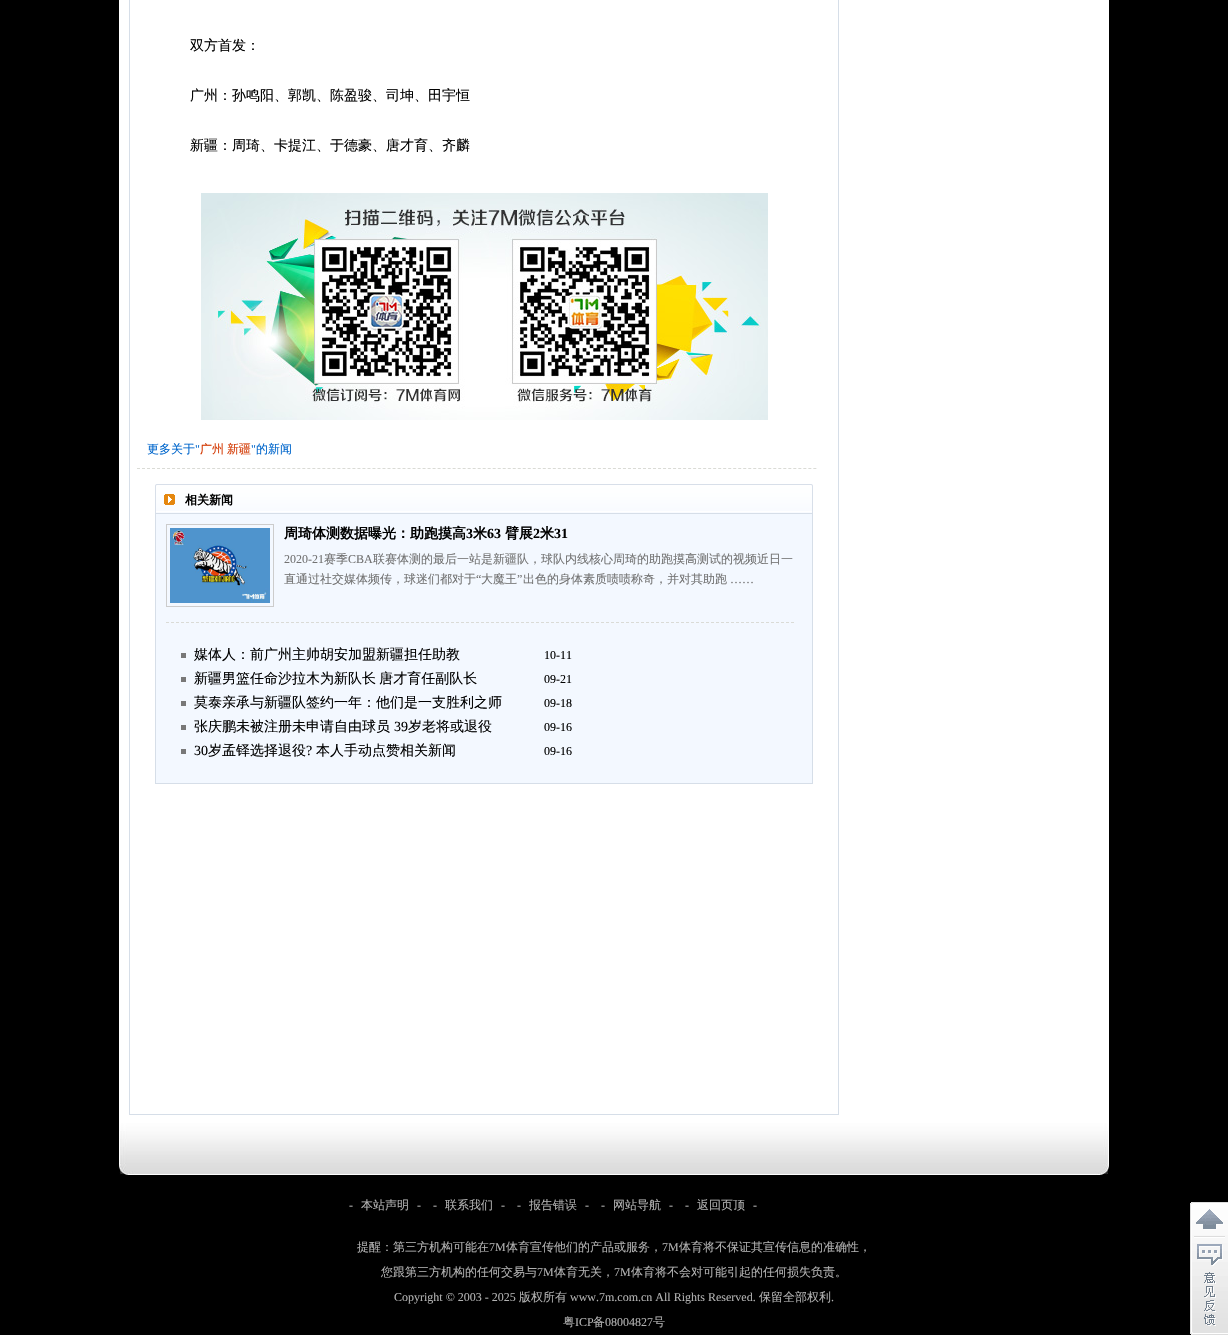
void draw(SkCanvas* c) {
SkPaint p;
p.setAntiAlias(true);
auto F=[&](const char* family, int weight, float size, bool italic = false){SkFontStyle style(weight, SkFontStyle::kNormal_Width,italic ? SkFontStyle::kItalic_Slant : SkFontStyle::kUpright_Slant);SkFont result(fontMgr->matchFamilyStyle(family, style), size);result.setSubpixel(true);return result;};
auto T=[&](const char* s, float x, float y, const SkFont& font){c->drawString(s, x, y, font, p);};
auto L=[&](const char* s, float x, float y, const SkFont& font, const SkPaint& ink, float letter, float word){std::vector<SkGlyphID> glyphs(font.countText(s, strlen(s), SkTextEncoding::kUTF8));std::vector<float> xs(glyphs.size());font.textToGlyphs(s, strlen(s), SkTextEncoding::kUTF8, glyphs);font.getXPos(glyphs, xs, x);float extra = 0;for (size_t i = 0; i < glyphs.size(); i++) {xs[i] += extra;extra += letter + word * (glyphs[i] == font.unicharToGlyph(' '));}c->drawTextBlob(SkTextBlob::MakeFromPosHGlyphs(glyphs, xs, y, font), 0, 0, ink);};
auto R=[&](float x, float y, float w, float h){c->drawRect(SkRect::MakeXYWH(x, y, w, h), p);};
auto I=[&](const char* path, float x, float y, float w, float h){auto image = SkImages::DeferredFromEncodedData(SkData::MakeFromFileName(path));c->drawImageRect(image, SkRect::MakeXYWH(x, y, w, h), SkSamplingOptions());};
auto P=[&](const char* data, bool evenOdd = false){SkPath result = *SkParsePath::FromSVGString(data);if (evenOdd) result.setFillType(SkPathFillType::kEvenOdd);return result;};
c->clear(0xff000000);
p.setColor(0xffffffff);
R(119,0,990,1115);
p.setStroke(true);
p.setStrokeWidth(1);
p.setColor(0xffd6dee8);
c->drawRect(SkRect::MakeXYWH(129.5,-.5,709,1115),p);
auto f1 = F("WenQuanYi Zen Hei",500,14);
p.setStroke(false);
p.setColor(0xff000000);
T("双方首发：",190,50,f1);
T("广州：孙鸣阳、郭凯、陈盈骏、司坤、田宇恒",190,100,f1);
T("新疆：周琦、卡提江、于德豪、唐才育、齐麟",190,150,f1);
I("1.png",201,193,567,227);
p.setStroke(true);
p.setColor(0xffdadbd6);
p.setPathEffect(SkDashPathEffect::Make({{3,2.01f}}, 0));
c->drawPath(P("M137 468.5h680"),p);
p.setPathEffect(nullptr);
auto f2 = F("WenQuanYi Zen Hei",500,12);
p.setStroke(false);
p.setColor(0xff0066cc);
T("更多关于",147,453,f2);
auto f3 = F("Liberation Serif",400,12);
T("\"",195,453,f3);
p.setColor(0xffd33700);
T("广州",200,453,f2);
T("新疆",227,453,f2);
p.setColor(0xff0066cc);
T("\"",251,453,f3);
T("的新闻",256,453,f2);
I("2.png",155,484,658,29);
auto f4 = F("WenQuanYi Zen Hei",700,12);
p.setColor(0xff000000);
T("相关新闻",185,504,f4);
p.setColor(0xfff3f8ff);
c->drawRect(SkRect::MakeXYWH(155.5,513.5,657,270),p);
p.setStroke(true);
p.setColor(0xffd6dee8);
c->drawRect(SkRect::MakeXYWH(155.5,513.5,657,270),p);
p.setColor(0xffdadbd6);
p.setPathEffect(SkDashPathEffect::Make({{3,2}}, 0));
c->drawPath(P("M166 622.5h628"),p);
p.setPathEffect(nullptr);
p.setColor(0xffcccccc);
c->drawRect(SkRect::MakeXYWH(166.5,524.5,107,82),p);
I("3.png",170,528,100,75);
auto f5 = F("WenQuanYi Zen Hei",700,14);
p.setStroke(false);
p.setColor(0xff000000);
T("周琦体测数据曝光：助跑摸高",284,538,f5);
auto f6 = F("Liberation Serif",700,14);
T("3",466,538,f6);
T("米",473,538,f5);
T("63",487,538,f6);
T("臂展",505,538,f5);
T("2",533,538,f6);
T("米",540,538,f5);
T("31",554,538,f6);
p.setColor(0xff727272);
T("2020-21",284,563,f3);
T("赛季",324,563,f2);
T("CBA",348,563,f3);
T("联赛体测的最后一站是新疆队，球队内线核心周琦的助跑摸高测试的视频近日一",373,563,f2);
T("直通过社交媒体频传，球迷们都对于",284,583,f2);
T("“",476,583,f3);
T("大魔王",481,583,f2);
T("”",517,583,f3);
T("出色的身体素质啧啧称奇，并对其助跑",523,583,f2);
T("……",730,583,f3);
p.setColor(0xff787878);
R(181,653,5,5);
p.setColor(0xff000000);
T("媒体人：前广州主帅胡安加盟新疆担任助教",194,659,f1);
T("10-11",544,659,f3);
p.setColor(0xff787878);
R(181,677,5,5);
p.setColor(0xff000000);
L("新疆男篮任命沙拉木为新队长 唐才育任副队长",194,683,f1,p,0,-1);
T("09-21",544,683,f3);
p.setColor(0xff787878);
R(181,701,5,5);
p.setColor(0xff000000);
T("莫泰亲承与新疆队签约一年：他们是一支胜利之师",194,707,f1);
T("09-18",544,707,f3);
p.setColor(0xff787878);
R(181,725,5,5);
p.setColor(0xff000000);
T("张庆鹏未被注册未申请自由球员",194,731,f1);
auto f7 = F("Liberation Serif",400,14);
T("39",394,731,f7);
T("岁老将或退役",408,731,f1);
T("09-16",544,731,f3);
p.setColor(0xff787878);
R(181,749,5,5);
p.setColor(0xff000000);
T("30",194,755,f7);
T("岁孟铎选择退役",208,755,f1);
T("?",306,755,f7);
T("本人手动点赞相关新闻",316,755,f1);
T("09-16",544,755,f3);
I("4.png",119,1115,990,60);
p.setColor(0xffb2b2b2);
T("-",349,1209,f3);
T("本站声明",361,1209,f2);
T("-",417,1209,f3);
T("-",433,1209,f3);
T("联系我们",445,1209,f2);
T("-",501,1209,f3);
T("-",517,1209,f3);
T("报告错误",529,1209,f2);
T("-",585,1209,f3);
T("-",601,1209,f3);
T("网站导航",613,1209,f2);
T("-",669,1209,f3);
T("-",685,1209,f3);
T("返回页顶",697,1209,f2);
T("-",753,1209,f3);
T("提醒：第三方机构可能在",357,1251,f2);
T("7M",489,1251,f3);
T("体育宣传他们的产品或服务，",506,1251,f2);
T("7M",662,1251,f3);
T("体育将不保证其宣传信息的准确性，",679,1251,f2);
T("您跟第三方机构的任何交易与",381,1276,f2);
T("7M",537,1276,f3);
T("体育无关，",554,1276,f2);
T("7M",614,1276,f3);
T("体育将不会对可能引起的任何损失负责。",631,1276,f2);
T("Copyright © 2003 - 2025",394,1301,f3);
T("版权所有",519,1301,f2);
T("www.7m.com.cn All Rights Reserved.",570,1301,f3);
T("保留全部权利",759,1301,f2);
T(".",831,1301,f3);
T("粤",563,1326,f2);
T("ICP",575,1326,f3);
T("备",593,1326,f2);
T("08004827",605,1326,f3);
T("号",653,1326,f2);
I("5.png",1190,1202,38,36);
I("6.png",1190,1238,38,97);
}
